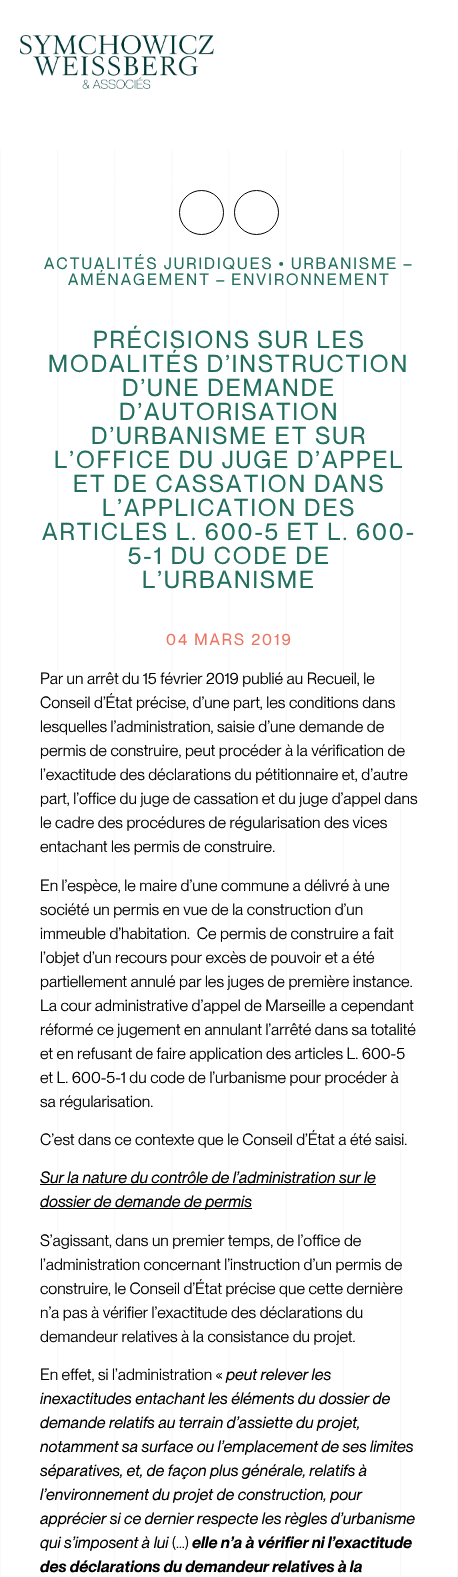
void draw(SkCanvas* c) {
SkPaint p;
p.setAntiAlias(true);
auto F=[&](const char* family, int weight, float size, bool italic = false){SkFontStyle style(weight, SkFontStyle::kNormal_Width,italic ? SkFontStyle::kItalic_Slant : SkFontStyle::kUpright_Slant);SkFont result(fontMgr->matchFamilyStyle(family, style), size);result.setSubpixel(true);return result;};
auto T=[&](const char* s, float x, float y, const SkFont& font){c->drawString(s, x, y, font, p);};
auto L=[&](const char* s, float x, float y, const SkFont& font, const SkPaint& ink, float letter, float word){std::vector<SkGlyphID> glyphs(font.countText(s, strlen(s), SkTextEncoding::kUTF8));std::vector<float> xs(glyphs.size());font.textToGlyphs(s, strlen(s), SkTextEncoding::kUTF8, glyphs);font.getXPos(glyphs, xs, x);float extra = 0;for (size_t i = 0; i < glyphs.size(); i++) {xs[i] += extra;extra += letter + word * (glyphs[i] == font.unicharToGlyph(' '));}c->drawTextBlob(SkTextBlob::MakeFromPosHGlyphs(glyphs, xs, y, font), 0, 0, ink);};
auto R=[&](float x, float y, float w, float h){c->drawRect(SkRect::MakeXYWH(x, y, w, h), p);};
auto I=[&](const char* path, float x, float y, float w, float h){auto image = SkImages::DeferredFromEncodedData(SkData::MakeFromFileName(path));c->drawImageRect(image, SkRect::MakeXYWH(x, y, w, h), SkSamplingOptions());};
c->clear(0xffffffff);
I("1.png",20,35,194,54);
I("2.png",0,150,458,1427);
p.setStroke(true);
p.setStrokeWidth(1);
p.setColor(0xff000000);
c->drawCircle(201.5,212.5,22,p);
c->drawCircle(256.5,212.5,22,p);
auto f1 = F("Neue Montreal",400,16);
p.setStroke(false);
p.setColor(0xff237060);
L("ACTUALITÉS JURIDIQUES • URBANISME –",44,269,f1,p,2,0);
L("AMÉNAGEMENT – ENVIRONNEMENT",68,285,f1,p,2,0);
auto f2 = F("Neue Montreal",400,24);
L("PRÉCISIONS SUR LES",93,348,f2,p,2,0);
L("MODALITÉS D’INSTRUCTION",48,372,f2,p,2,0);
L("D’UNE DEMANDE",122,396,f2,p,2,0);
L("D’AUTORISATION",119,420,f2,p,2,0);
L("D’URBANISME ET SUR",91,444,f2,p,2,0);
L("L’OFFICE DU JUGE D’APPEL",54,468,f2,p,2,0);
L("ET DE CASSATION DANS",73,492,f2,p,2,0);
L("L’APPLICATION DES",102,516,f2,p,2,0);
L("ARTICLES L. 600-5 ET L. 600-",42,540,f2,p,2,0);
L("5-1 DU CODE DE",128,564,f2,p,2,0);
L("L’URBANISME",142,588,f2,p,2,0);
p.setColor(0xffec7461);
L("04 MARS 2019",166,645,f1,p,2,0);
auto f3 = F("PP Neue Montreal",400,16);
p.setColor(0xff000000);
T("Par un arrêt du 15 février 2019 publié au Recueil, le",40,684,f3);
T("Conseil d’État précise, d’une part, les conditions dans",40,708,f3);
T("lesquelles l’administration, saisie d’une demande de",40,732,f3);
T("permis de construire, peut procéder à la vérification de",40,756,f3);
T("l’exactitude des déclarations du pétitionnaire et, d’autre",40,780,f3);
T("part, l’office du juge de cassation et du juge d’appel dans",40,804,f3);
T("le cadre des procédures de régularisation des vices",40,828,f3);
T("entachant les permis de construire.",40,852,f3);
T("En l’espèce, le maire d’une commune a délivré à une",40,891,f3);
T("société un permis en vue de la construction d’un",40,915,f3);
T("immeuble d’habitation.  Ce permis de construire a fait",40,939,f3);
T("l’objet d’un recours pour excès de pouvoir et a été",40,963,f3);
T("partiellement annulé par les juges de première instance.",40,987,f3);
T("La cour administrative d’appel de Marseille a cependant",40,1011,f3);
T("réformé ce jugement en annulant l’arrêté dans sa totalité",40,1035,f3);
T("et en refusant de faire application des articles L. 600-5",40,1059,f3);
T("et L. 600-5-1 du code de l’urbanisme pour procéder à",40,1083,f3);
T("sa régularisation.",40,1107,f3);
T("C’est dans ce contexte que le Conseil d’État a été saisi.",40,1145,f3);
auto f4 = F("PP Neue Montreal",400,16,true);
T("Sur la nature du contrôle de l’administration sur le",40,1183,f4);
R(40,1184,336,1);
R(40,1208,212,1);
T("dossier de demande de permis",40,1207,f4);
T("S’agissant, dans un premier temps, de l’office de",40,1246,f3);
T("l’administration concernant l’instruction d’un permis de",40,1270,f3);
T("construire, le Conseil d’État précise que cette dernière",40,1294,f3);
T("n’a pas à vérifier l’exactitude des déclarations du",40,1318,f3);
T("demandeur relatives à la consistance du projet.",40,1342,f3);
T("En effet, si l’administration «",40,1380,f3);
T("peut relever les",226,1380,f4);
T("inexactitudes entachant les éléments du dossier de",40,1404,f4);
T("demande relatifs au terrain d’assiette du projet,",40,1428,f4);
T("notamment sa surface ou l’emplacement de ses limites",40,1452,f4);
T("séparatives, et, de façon plus générale, relatifs à",40,1476,f4);
T("l’environnement du projet de construction, pour",40,1500,f4);
T("apprécier si ce dernier respecte les règles d’urbanisme",40,1524,f4);
T("qui s’imposent à lui",40,1548,f4);
T("(…)",172,1548,f3);
auto f5 = F("PP Neue Montreal",600,16,true);
T("elle n’a à vérifier ni l’exactitude",192,1548,f5);
T("des déclarations du demandeur relatives à la",40,1572,f5);
}
